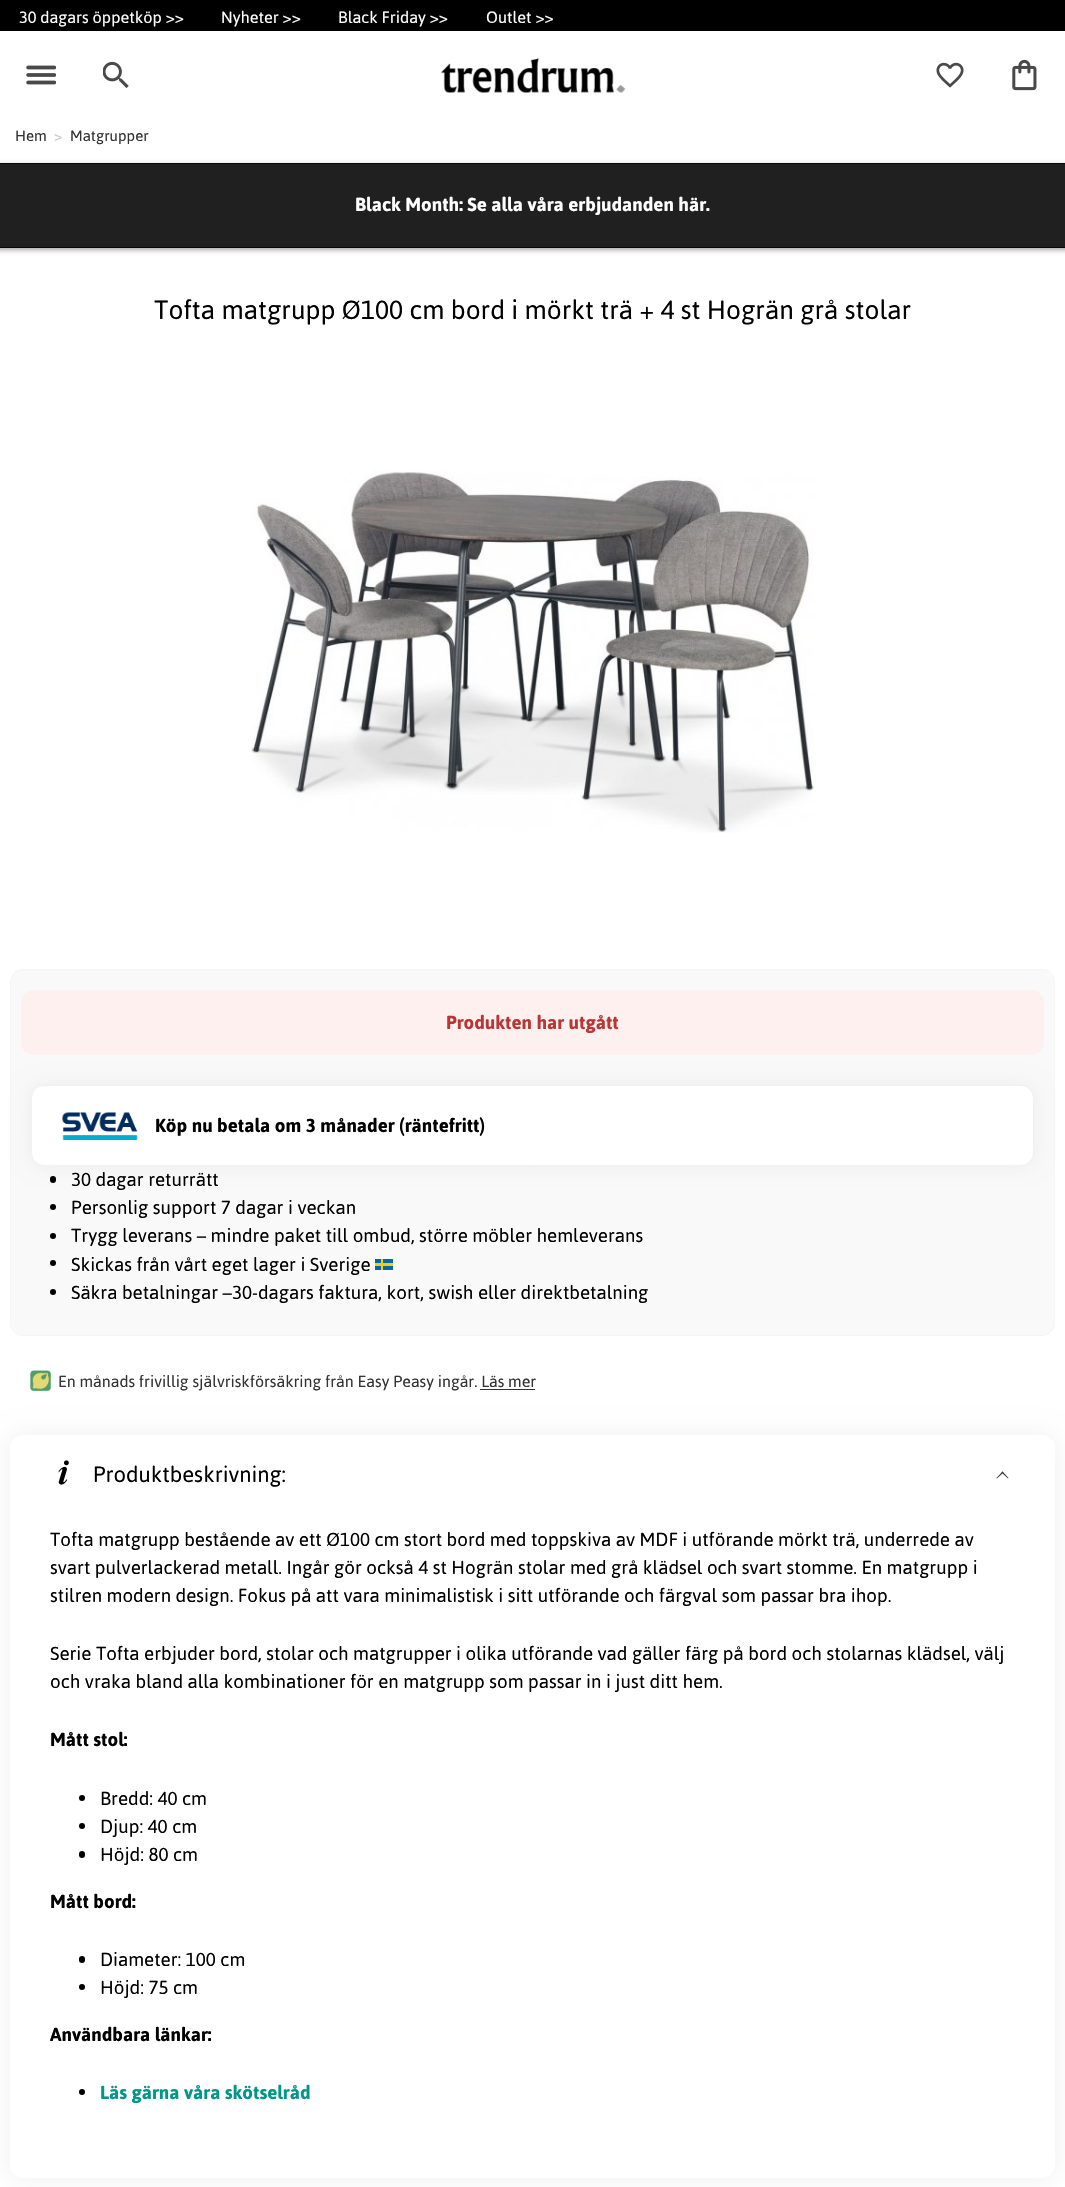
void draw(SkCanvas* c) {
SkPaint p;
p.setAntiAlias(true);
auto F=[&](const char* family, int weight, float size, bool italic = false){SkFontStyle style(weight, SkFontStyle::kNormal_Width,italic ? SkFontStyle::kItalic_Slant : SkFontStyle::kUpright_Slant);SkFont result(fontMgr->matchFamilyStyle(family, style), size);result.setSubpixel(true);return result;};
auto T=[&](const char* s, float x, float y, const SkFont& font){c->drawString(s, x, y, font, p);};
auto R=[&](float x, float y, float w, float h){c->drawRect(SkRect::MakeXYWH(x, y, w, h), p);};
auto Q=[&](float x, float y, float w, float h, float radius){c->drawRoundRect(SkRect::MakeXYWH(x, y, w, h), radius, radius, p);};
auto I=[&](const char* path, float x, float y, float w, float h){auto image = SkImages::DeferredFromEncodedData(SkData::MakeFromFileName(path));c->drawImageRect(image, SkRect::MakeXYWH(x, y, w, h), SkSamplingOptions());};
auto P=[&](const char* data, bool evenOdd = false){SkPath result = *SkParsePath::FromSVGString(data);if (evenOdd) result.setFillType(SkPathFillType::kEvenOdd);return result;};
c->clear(0xffffffff);
p.setColor(0xff000000);
R(0,0,1065,31);
auto f1 = F("Asap",400,16.25);
p.setColor(0xffffffff);
T("30 dagars öppetköp >>",19,23,f1);
T("Nyheter >>",221,23,f1);
T("Black Friday >>",338,23,f1);
T("Outlet >>",486,23,f1);
I("1.png",26,65,30,20);
I("2.png",103,61,26,27);
I("3.png",440,58,186,35);
I("4.png",936,62,28,26);
I("5.png",1012,59,25,32);
auto f2 = F("Asap",400,15);
p.setColor(0xff333333);
T("Hem",15,141,f2);
p.setColor(0xffc9c9c9);
T(">",54,141,f2);
p.setColor(0xff333333);
T("Matgrupper",70,141,f2);
p.setColor(0x59000000);
p.setMaskFilter(SkMaskFilter::MakeBlur(kNormal_SkBlurStyle, 2.5));
c->drawRect(SkRect::MakeXYWH(-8,165,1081,85),p);
p.setMaskFilter(nullptr);
p.setColor(0xff202020);
c->drawRect(SkRect::MakeXYWH(-.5,163.5,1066,84),p);
p.setStroke(true);
p.setStrokeWidth(1);
p.setColor(0xff0f0902);
c->drawRect(SkRect::MakeXYWH(-.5,163.5,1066,84),p);
auto f3 = F("Asap",700,18.75);
p.setStroke(false);
p.setColor(0xffffffff);
T("Black Month: Se alla våra erbjudanden här.",355,211,f3);
auto f4 = F("Asap",400,26.25);
p.setColor(0xff000000);
T("Tofta matgrupp Ø100 cm bord i mörkt trä + 4 st Hogrän grå stolar",154,319,f4);
I("6.png",251,469,563,364);
p.setColor(0xfff9f9f9);
c->drawRoundRect(SkRect::MakeXYWH(10.5,969.5,1044,366),12.5,12.5,p);
p.setStroke(true);
p.setColor(0xfff5f5f5);
c->drawRoundRect(SkRect::MakeXYWH(10.5,969.5,1044,366),12.5,12.5,p);
p.setStroke(false);
p.setColor(0xfffff0f0);
Q(21,990,1023,65,13);
p.setColor(0xffb93636);
T("Produkten har utgått",446,1029,f3);
p.setColor(0x0d000000);
p.setMaskFilter(SkMaskFilter::MakeBlur(kNormal_SkBlurStyle, 9.5));
c->drawRoundRect(SkRect::MakeXYWH(31,1085,1003,81),13,13,p);
p.setMaskFilter(nullptr);
p.setColor(0xffffffff);
c->drawRoundRect(SkRect::MakeXYWH(31.5,1085.5,1002,80),12.5,12.5,p);
p.setStroke(true);
p.setColor(0xfff1f1f1);
c->drawRoundRect(SkRect::MakeXYWH(31.5,1085.5,1002,80),12.5,12.5,p);
I("7.png",62,1112,76,28);
p.setStroke(false);
p.setColor(0xff000000);
T("Köp nu betala om 3 månader (räntefritt)",155,1132,f3);
Q(50,1176,6,7,3);
auto f5 = F("Asap",400,18.75);
T("30 dagar returrätt",71,1186,f5);
c->drawCircle(53,1207,3,p);
T("Personlig support 7 dagar i veckan",71,1214,f5);
c->drawCircle(53,1236,3,p);
T("Trygg leverans – mindre paket till ombud, större möbler hemleverans",71,1242,f5);
T("Skickas från vårt eget lager i Sverige",71,1271,f5);
p.setColor(0xff006aa7);
R(375,1259,18,11);
p.setColor(0xff000000);
c->drawCircle(53,1263,3,p);
p.setColor(0xfffecc00);
R(381,1259,2,11);
R(375,1263,18,3);
p.setColor(0xff000000);
c->drawCircle(53,1292,3,p);
T("Säkra betalningar –30-dagars faktura, kort, swish eller direktbetalning",71,1299,f5);
I("8.png",30,1370,22,22);
auto f6 = F("Asap",400,16);
p.setColor(0xff333333);
T("En månads frivillig självriskförsäkring från Easy Peasy ingår. Läs mer",58,1387,f6);
R(480,1389,55,1);
p.setColor(0x0f000000);
p.setMaskFilter(SkMaskFilter::MakeBlur(kNormal_SkBlurStyle, 12.5));
c->drawRoundRect(SkRect::MakeXYWH(10,1435,1045,743),13,13,p);
p.setMaskFilter(nullptr);
p.setColor(0xffffffff);
Q(10,1435,1045,743,13);
I("9.png",58,1460,11,25);
auto f7 = F("Asap",400,22);
p.setColor(0xff000000);
T("Produktbeskrivning:",93,1482,f7);
p.setColor(0xff333333);
c->drawPath(P("M996.5 1478l6-6.5l1 1l-6.5 6z"),p);
c->drawPath(P("M1001.5 1472.5l1-1l6 6.5l-.5 .5z"),p);
p.setColor(0xff000000);
T("Tofta matgrupp bestående av ett Ø100 cm stort bord med toppskiva av MDF i utförande mörkt trä, underrede av",50,1546,f5);
T("svart pulverlackerad metall. Ingår gör också 4 st Hogrän stolar med grå klädsel och svart stomme. En matgrupp i",50,1574,f5);
T("stilren modern design. Fokus på att vara minimalistisk i sitt utförande och färgval som passar bra ihop.",50,1602,f5);
T("Serie Tofta erbjuder bord, stolar och matgrupper i olika utförande vad gäller färg på bord och stolarnas klädsel, välj",50,1660,f5);
T("och vraka bland alla kombinationer för en matgrupp som passar in i just ditt hem.",50,1688,f5);
T("Mått stol:",50,1746,f3);
c->drawCircle(82,1798,3,p);
T("Bredd: 40 cm",100,1805,f5);
c->drawCircle(82,1826,3,p);
T("Djup: 40 cm",100,1833,f5);
Q(79,1851,6,7,3);
T("Höjd: 80 cm",100,1861,f5);
T("Mått bord:",50,1908,f3);
Q(79,1956,6,7,3);
T("Diameter: 100 cm",100,1966,f5);
c->drawCircle(82,1987,3,p);
T("Höjd: 75 cm",100,1994,f5);
T("Användbara länkar:",50,2041,f3);
c->drawCircle(82,2092,3,p);
p.setColor(0xff009688);
T("Läs gärna våra skötselråd",100,2099,f3);
}
